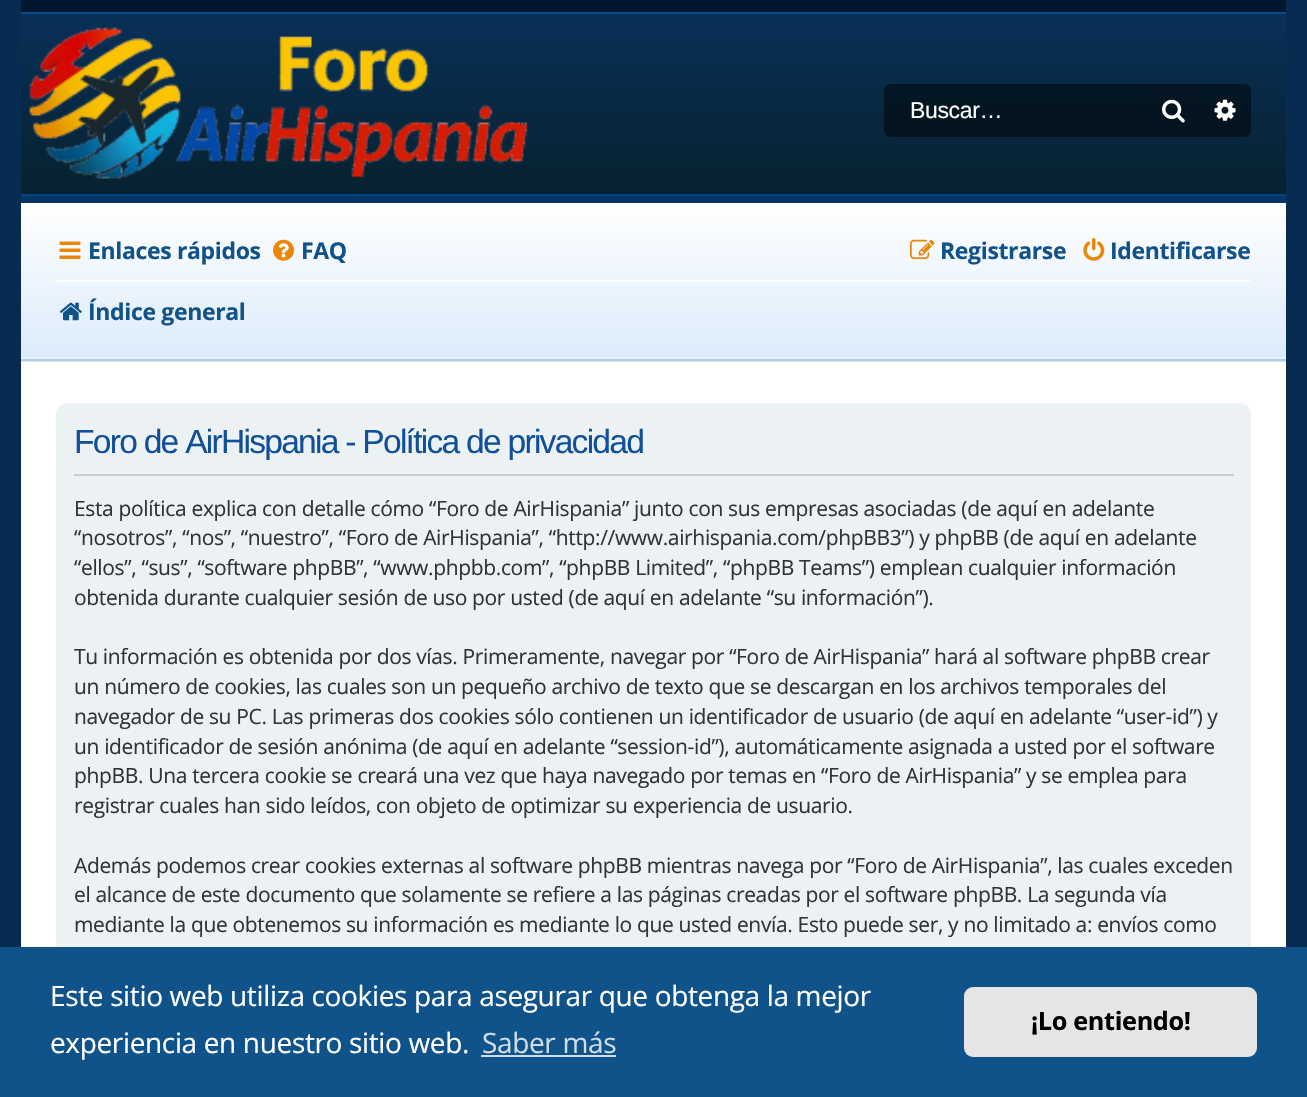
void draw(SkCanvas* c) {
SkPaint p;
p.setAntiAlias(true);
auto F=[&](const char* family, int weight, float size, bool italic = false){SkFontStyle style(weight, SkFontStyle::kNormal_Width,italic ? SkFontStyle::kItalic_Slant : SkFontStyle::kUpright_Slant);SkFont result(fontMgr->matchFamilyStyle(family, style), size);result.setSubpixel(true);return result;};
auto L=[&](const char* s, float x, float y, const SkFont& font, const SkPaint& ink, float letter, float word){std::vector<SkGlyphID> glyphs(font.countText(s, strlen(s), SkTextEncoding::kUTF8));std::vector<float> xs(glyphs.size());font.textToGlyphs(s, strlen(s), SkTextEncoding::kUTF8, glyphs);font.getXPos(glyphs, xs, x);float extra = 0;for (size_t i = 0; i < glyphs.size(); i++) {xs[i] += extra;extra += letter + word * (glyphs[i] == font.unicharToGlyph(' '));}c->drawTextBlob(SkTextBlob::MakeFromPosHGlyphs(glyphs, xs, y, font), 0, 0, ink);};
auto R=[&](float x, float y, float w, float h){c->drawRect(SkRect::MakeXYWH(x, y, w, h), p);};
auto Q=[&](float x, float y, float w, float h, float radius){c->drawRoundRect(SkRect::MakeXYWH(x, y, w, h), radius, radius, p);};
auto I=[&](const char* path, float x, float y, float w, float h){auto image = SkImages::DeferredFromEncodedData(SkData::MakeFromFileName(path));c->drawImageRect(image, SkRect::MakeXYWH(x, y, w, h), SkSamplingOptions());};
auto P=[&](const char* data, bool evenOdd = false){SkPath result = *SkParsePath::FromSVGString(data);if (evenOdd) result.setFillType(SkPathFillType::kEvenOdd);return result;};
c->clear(0xff082b51);
p.setColor(0xffffffff);
R(21,362,1265,585);
p.setColor(0xff01172f);
R(21,0,1265,12);
{
const SkColor colors[] = {0xff07222f,0xff093058};
const float stops[] = {0,1};
const SkPoint ends[] = {{654,194}, {654,14}};
p.setShader(SkGradientShader::MakeLinear(ends, colors, stops, 2, SkTileMode::kClamp));
p.setAlpha(255);
}
R(21,14,1265,180);
{
const SkColor colors[] = {0xff041118,0xff05182c};
const float stops[] = {0,1};
const SkPoint ends[] = {{654,194}, {654,14}};
p.setShader(SkGradientShader::MakeLinear(ends, colors, stops, 2, SkTileMode::kClamp));
p.setAlpha(255);
}
R(1146,84,53,53);
p.setShader(nullptr);
p.setColor(0xff0a498e);
R(21,12,1265,2);
p.setColor(0xff004389);
R(21,194,1265,2);
I("1.png",29,27,499,152);
p.setColor(0x80000000);
c->drawPath(P("M891 84h255v53h-255c-4 0-7-3-7-7v-39c0-4 3-7 7-7z"),p);
auto f1 = F("Liberation Sans",400,23);
p.setColor(0xffffffff);
L("Buscar…",910,118,f1,p,-.35,0);
I("2.png",1162,99,23,24);
p.setColor(0x80000000);
c->drawPath(P("M1199 84h45c4 0 7 3 7 7v39c0 4-3 7-7 7h-45z"),p);
I("3.png",1214,99,22,22);
p.setColor(0xffd9e6f1);
R(21,361,1265,1);
{
const SkColor colors[] = {0xffdcebfb,0xffffffff};
const float stops[] = {0,1};
const SkPoint ends[] = {{654,359}, {654,203}};
p.setShader(SkGradientShader::MakeLinear(ends, colors, stops, 2, SkTileMode::kClamp));
p.setAlpha(255);
}
R(21,203,1265,154);
p.setShader(nullptr);
p.setColor(0xffe7f1fc);
R(21,357,1265,2);
p.setColor(0xff063465);
R(21,196,1265,7);
p.setColor(0xffb3cce4);
R(21,359,1265,2);
I("4.png",59,241,22,18);
auto f2 = F("Open Sans",700,23);
p.setColor(0xff105289);
L("Enlaces rápidos",88,259,f2,p,-.35,0);
I("5.png",273,239,21,22);
L("FAQ",301,259,f2,p,-.35,0);
I("6.png",910,239,25,20);
L("Registrarse",940,259,f2,p,-.35,0);
I("7.png",1083,238,22,23);
L("Identificarse",1110,259,f2,p,-.35,0);
p.setColor(0xffffffff);
R(56,280,1195,2);
I("8.png",59,302,23,19);
p.setColor(0xff105289);
L("Índice general",88,320,f2,p,-.35,0);
p.setColor(0xffecf1f3);
Q(56,403,1195,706,12);
p.setColor(0xffcccccc);
R(74,474,1160,2);
auto f3 = F("Liberation Sans",400,33.6);
p.setColor(0xff115098);
L("Foro de AirHispania - Política de privacidad",74,453,f3,p,-1.75,0);
auto f4 = F("Open Sans",400,21);
p.setColor(0xff333333);
L("Esta política explica con detalle cómo “Foro de AirHispania” junto con sus empresas asociadas (de aquí en adelante",74,516,f4,p,-.35,0);
L("“nosotros”, “nos”, “nuestro”, “Foro de AirHispania”, “http://www.airhispania.com/phpBB3”) y phpBB (de aquí en adelante",74,545,f4,p,-.35,0);
L("“ellos”, “sus”, “software phpBB”, “www.phpbb.com”, “phpBB Limited”, “phpBB Teams”) emplean cualquier información",74,575,f4,p,-.35,0);
L("obtenida durante cualquier sesión de uso por usted (de aquí en adelante “su información”).",74,605,f4,p,-.35,0);
L("Tu información es obtenida por dos vías. Primeramente, navegar por “Foro de AirHispania” hará al software phpBB crear",74,664,f4,p,-.35,0);
L("un número de cookies, las cuales son un pequeño archivo de texto que se descargan en los archivos temporales del",74,694,f4,p,-.35,0);
L("navegador de su PC. Las primeras dos cookies sólo contienen un identificador de usuario (de aquí en adelante “user-id”) y",74,724,f4,p,-.35,0);
L("un identificador de sesión anónima (de aquí en adelante “session-id”), automáticamente asignada a usted por el software",74,754,f4,p,-.35,0);
L("phpBB. Una tercera cookie se creará una vez que haya navegado por temas en “Foro de AirHispania” y se emplea para",74,783,f4,p,-.35,0);
L("registrar cuales han sido leídos, con objeto de optimizar su experiencia de usuario.",74,813,f4,p,-.35,0);
L("Además podemos crear cookies externas al software phpBB mientras navega por “Foro de AirHispania”, las cuales exceden",74,873,f4,p,-.35,0);
L("el alcance de este documento que solamente se refiere a las páginas creadas por el software phpBB. La segunda vía",74,902,f4,p,-.35,0);
L("mediante la que obtenemos su información es mediante lo que usted envía. Esto puede ser, y no limitado a: envíos como",74,932,f4,p,-.35,0);
p.setColor(0xff0f538a);
R(0,947,1307,150);
auto f5 = F("Open Sans",400,28);
p.setColor(0xffffffff);
L("Este sitio web utiliza cookies para asegurar que obtenga la mejor",50,1006,f5,p,-.35,0);
L("experiencia en nuestro sitio web.",50,1053,f5,p,-.35,0);
p.setColor(0xffcfdde8);
L("Saber más",482,1053,f5,p,-.35,0);
R(481,1055,135,2);
p.setColor(0xffe5e5e5);
Q(964,987,293,70,9);
auto f6 = F("Open Sans",700,25.25);
p.setColor(0xff000000);
L("¡Lo entiendo!",1031,1030,f6,p,-.35,0);
}
